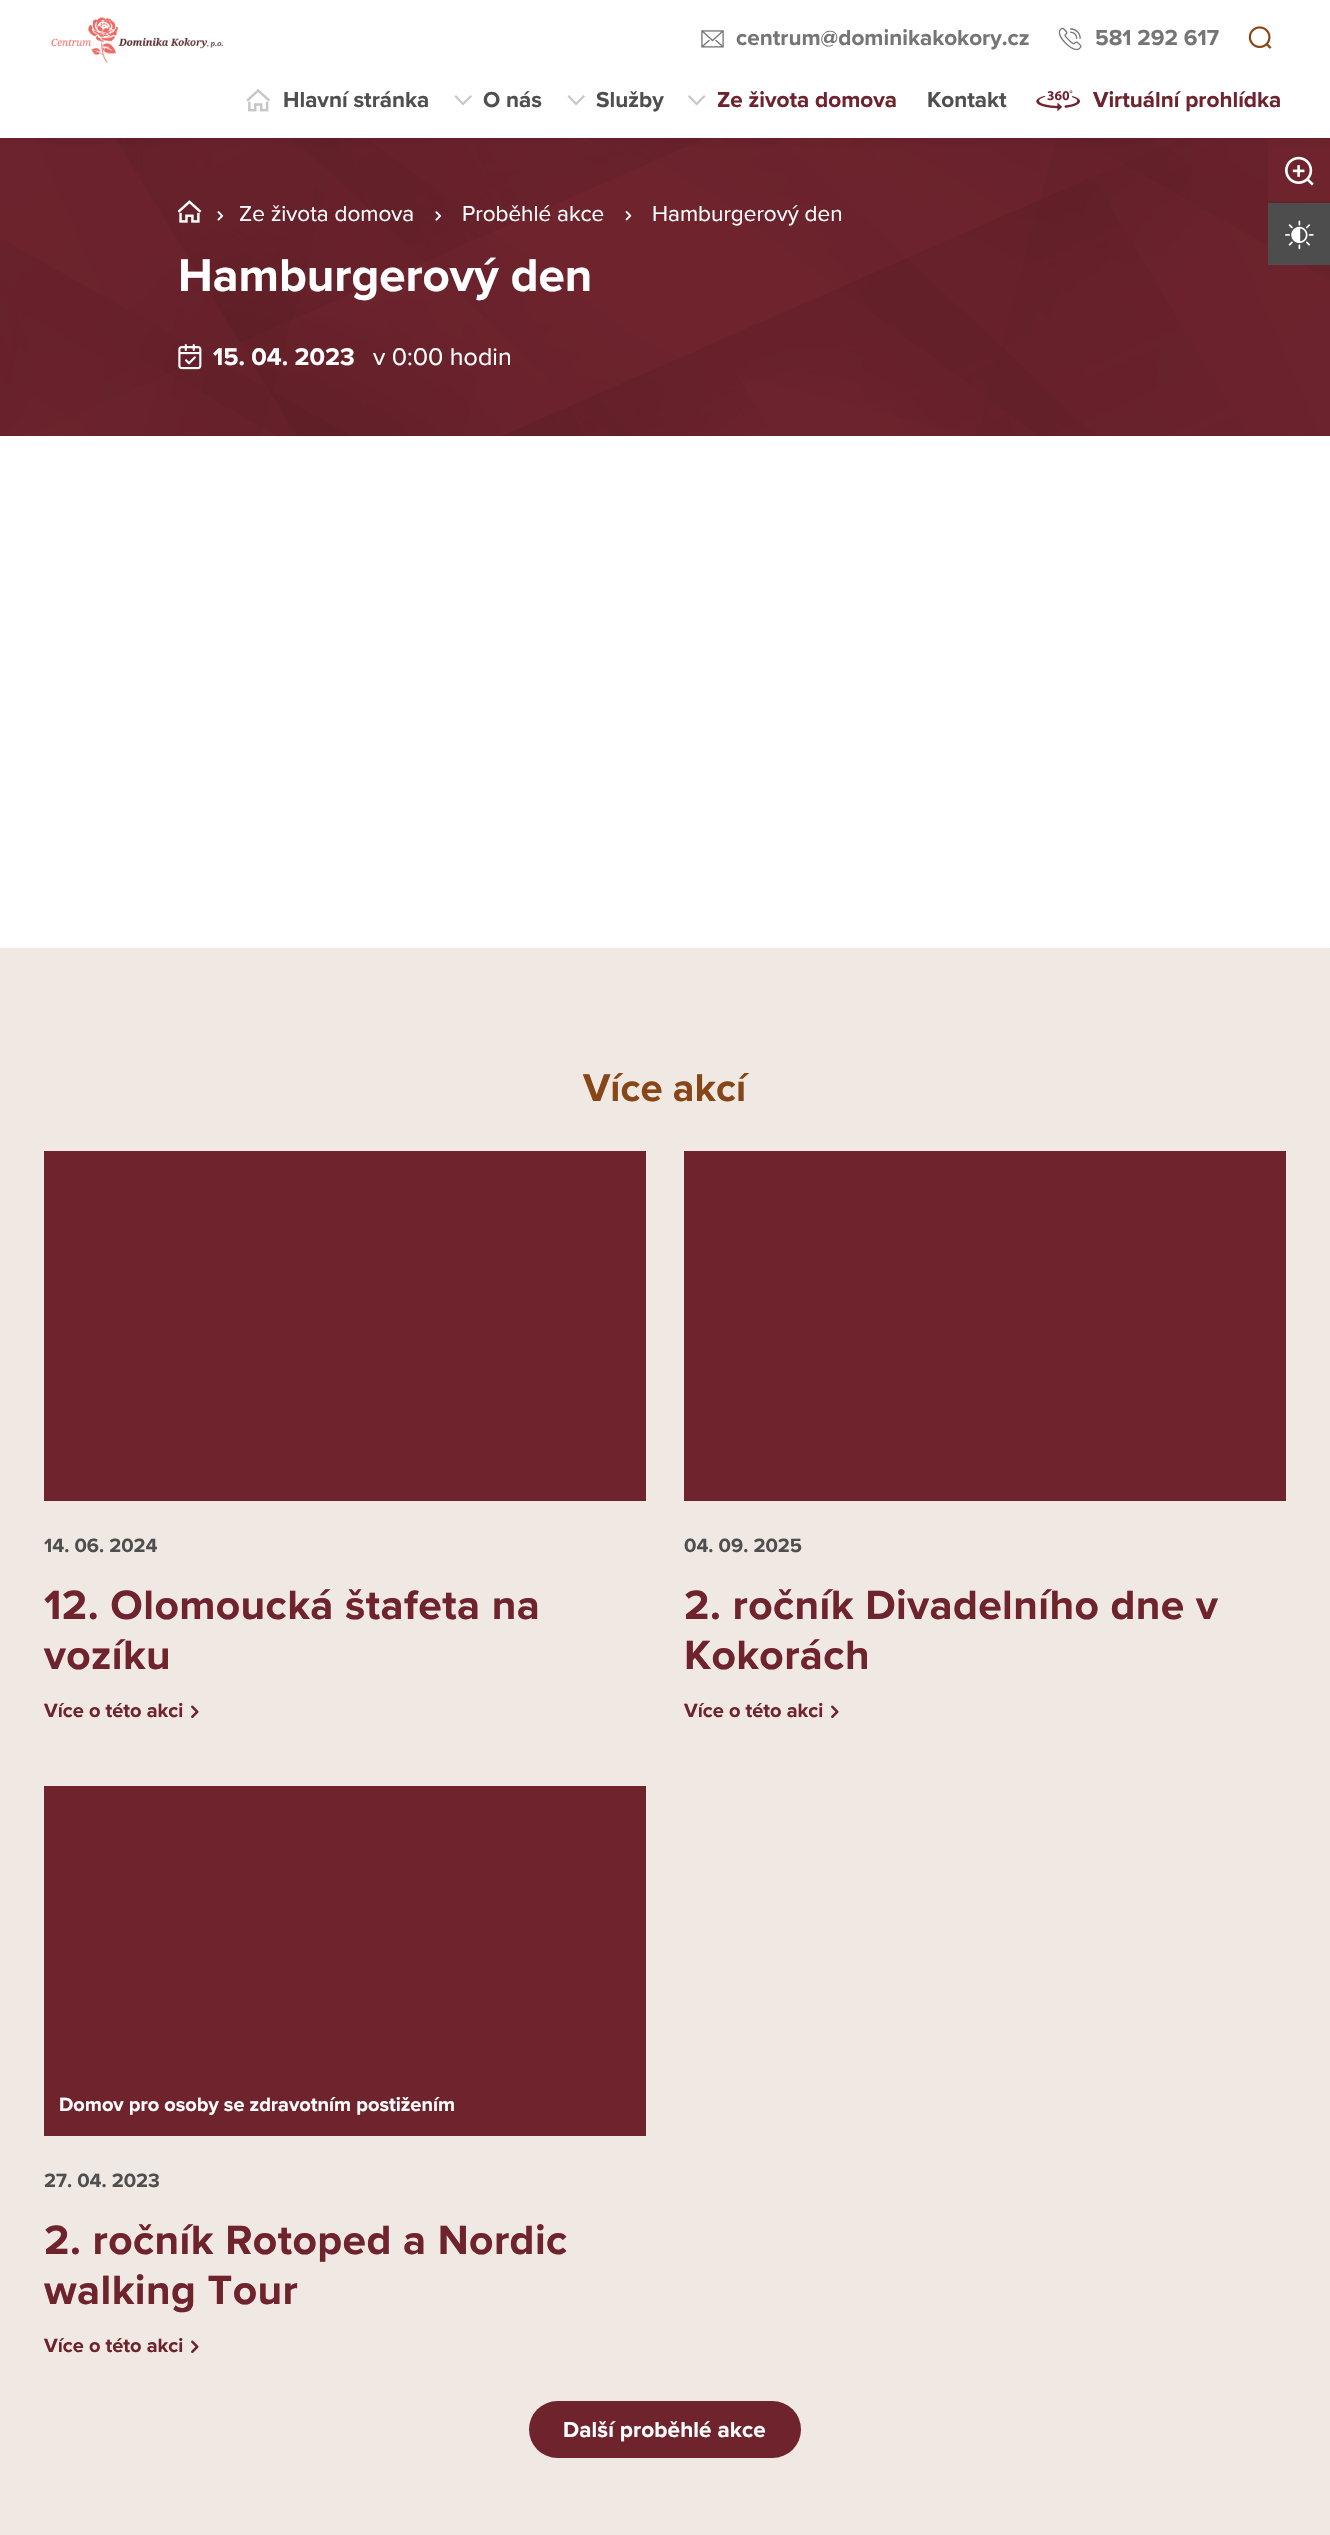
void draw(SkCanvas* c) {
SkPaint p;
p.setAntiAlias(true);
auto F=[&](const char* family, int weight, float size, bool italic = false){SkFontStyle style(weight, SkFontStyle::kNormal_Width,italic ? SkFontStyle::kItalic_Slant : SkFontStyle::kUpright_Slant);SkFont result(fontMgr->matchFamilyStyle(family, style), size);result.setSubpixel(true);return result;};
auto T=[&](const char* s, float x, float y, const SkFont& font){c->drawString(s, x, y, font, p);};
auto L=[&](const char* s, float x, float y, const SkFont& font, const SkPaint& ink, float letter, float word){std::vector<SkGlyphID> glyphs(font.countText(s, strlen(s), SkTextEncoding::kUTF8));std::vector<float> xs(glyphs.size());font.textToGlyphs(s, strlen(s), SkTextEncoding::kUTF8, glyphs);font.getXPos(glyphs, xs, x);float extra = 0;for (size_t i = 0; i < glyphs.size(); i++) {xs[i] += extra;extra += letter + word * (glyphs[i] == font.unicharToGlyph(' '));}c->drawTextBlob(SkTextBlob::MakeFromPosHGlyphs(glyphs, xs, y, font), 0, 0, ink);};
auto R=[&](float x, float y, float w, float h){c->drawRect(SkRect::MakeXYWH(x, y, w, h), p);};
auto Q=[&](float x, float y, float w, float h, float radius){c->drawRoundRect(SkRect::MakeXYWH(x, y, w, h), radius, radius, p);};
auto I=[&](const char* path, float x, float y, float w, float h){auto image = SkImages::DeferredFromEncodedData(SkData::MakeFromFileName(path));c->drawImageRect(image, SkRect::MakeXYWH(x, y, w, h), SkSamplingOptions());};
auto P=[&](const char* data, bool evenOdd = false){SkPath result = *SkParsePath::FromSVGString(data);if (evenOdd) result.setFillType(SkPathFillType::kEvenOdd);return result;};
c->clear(0xffffffff);
p.setColor(0xff6e232d);
R(0,138,1330,298);
I("7.png",0,138,1330,299);
R(1268,139,62,62);
I("14.png",1285,156,29,30);
p.setColor(0x14000000);
p.setMaskFilter(SkMaskFilter::MakeBlur(kNormal_SkBlurStyle, 6));
c->drawRect(SkRect::MakeXYWH(0,0,1330,138),p);
p.setMaskFilter(nullptr);
p.setColor(0xffffffff);
R(0,0,1330,138);
I("1.png",51,17,172,46);
I("2.png",701,30,23,18);
auto f1 = F("Proxima Nova",700,22.5);
p.setColor(0xff757575);
T("centrum@dominikakokory.cz",736,45,f1);
I("3.png",1058,27,24,24);
T("581 292 617",1095,45,f1);
I("4.png",1248,26,24,23);
I("5.png",246,89,24,23);
p.setColor(0xff4f4f4f);
T("Hlavní stránka",283,107,f1);
p.setColor(0xffc6c6c6);
c->drawPath(P("M463 105.5l9-9l-1.5-1.5l-7.5 7.5l-7-7.5l-1.5 1.5z"),p);
p.setColor(0xff4f4f4f);
T("O nás",483,107,f1);
p.setColor(0xffc6c6c6);
c->drawPath(P("M576 105.5l9-9l-1.5-1.5l-7.5 7.5l-7-7.5l-1.5 1.5z"),p);
p.setColor(0xff4f4f4f);
T("Služby",596,107,f1);
p.setColor(0xffc6c6c6);
c->drawPath(P("M696.5 105.5l9-9l-1.5-1.5l-7.5 7.5l-7-7.5l-1.5 1.5z"),p);
p.setColor(0xff6e232d);
T("Ze života domova",717,107,f1);
p.setColor(0xff4f4f4f);
T("Kontakt",927,107,f1);
I("6.png",1036,90,44,22);
p.setColor(0xff6e232d);
T("Virtuální prohlídka",1093,107,f1);
I("8.png",178,200,24,23);
I("9.png",217,211,7,10);
auto f2 = F("Proxima Nova",400,22.5);
p.setColor(0xffffffff);
T("Ze života domova",239,221,f2);
I("10.png",435,211,6,10);
T("Proběhlé akce",462,221,f2);
I("11.png",625,211,7,10);
T("Hamburgerový den",652,221,f2);
auto f3 = F("Proxima Nova",700,47.5);
T("Hamburgerový den",178,291,f3);
I("12.png",178,344,24,26);
auto f4 = F("Proxima Nova",700,25);
T("15. 04. 2023",213,365,f4);
auto f5 = F("Proxima Nova",400,25);
T("v 0:00 hodin",373,365,f5);
p.setColor(0xfff0e9e3);
R(0,948,1330,1587);
auto f6 = F("Proxima Nova",700,40);
p.setColor(0xff874617);
T("Více akcí",583,1101,f6);
p.setColor(0xff6e232d);
R(44,1151,602,350);
auto f7 = F("Proxima Nova",700,20);
p.setColor(0xff4f4f4f);
T("14. 06. 2024",44,1552,f7);
auto f8 = F("Proxima Nova",700,42.5);
p.setColor(0xff6e232d);
L("12. Olomoucká štafeta na",44,1619,f8,p,.4,0);
L("vozíku",44,1669,f8,p,.4,0);
T("Více o této akci",44,1717,f7);
I("13.png",191,1705,8,13);
R(684,1151,602,350);
p.setColor(0xff4f4f4f);
T("04. 09. 2025",684,1552,f7);
p.setColor(0xff6e232d);
L("2. ročník Divadelního dne v",684,1619,f8,p,.4,0);
L("Kokorách",684,1669,f8,p,.4,0);
T("Více o této akci",684,1717,f7);
I("13.png",831,1705,8,13);
R(44,1786,602,350);
p.setColor(0xffffffff);
T("Domov pro osoby se zdravotním postižením",59,2111,f7);
p.setColor(0xff4f4f4f);
T("27. 04. 2023",44,2187,f7);
p.setColor(0xff6e232d);
L("2. ročník Rotoped a Nordic",44,2254,f8,p,.4,0);
L("walking Tour",44,2304,f8,p,.4,0);
T("Více o této akci",44,2352,f7);
I("13.png",191,2340,8,13);
Q(529,2401,272,57,28.5);
p.setColor(0xffffffff);
L("Další proběhlé akce",563,2437,f1,p,.1,0);
p.setColor(0xff4d4d4d);
R(1268,203,62,62);
I("15.png",1285,220,29,30);
}
